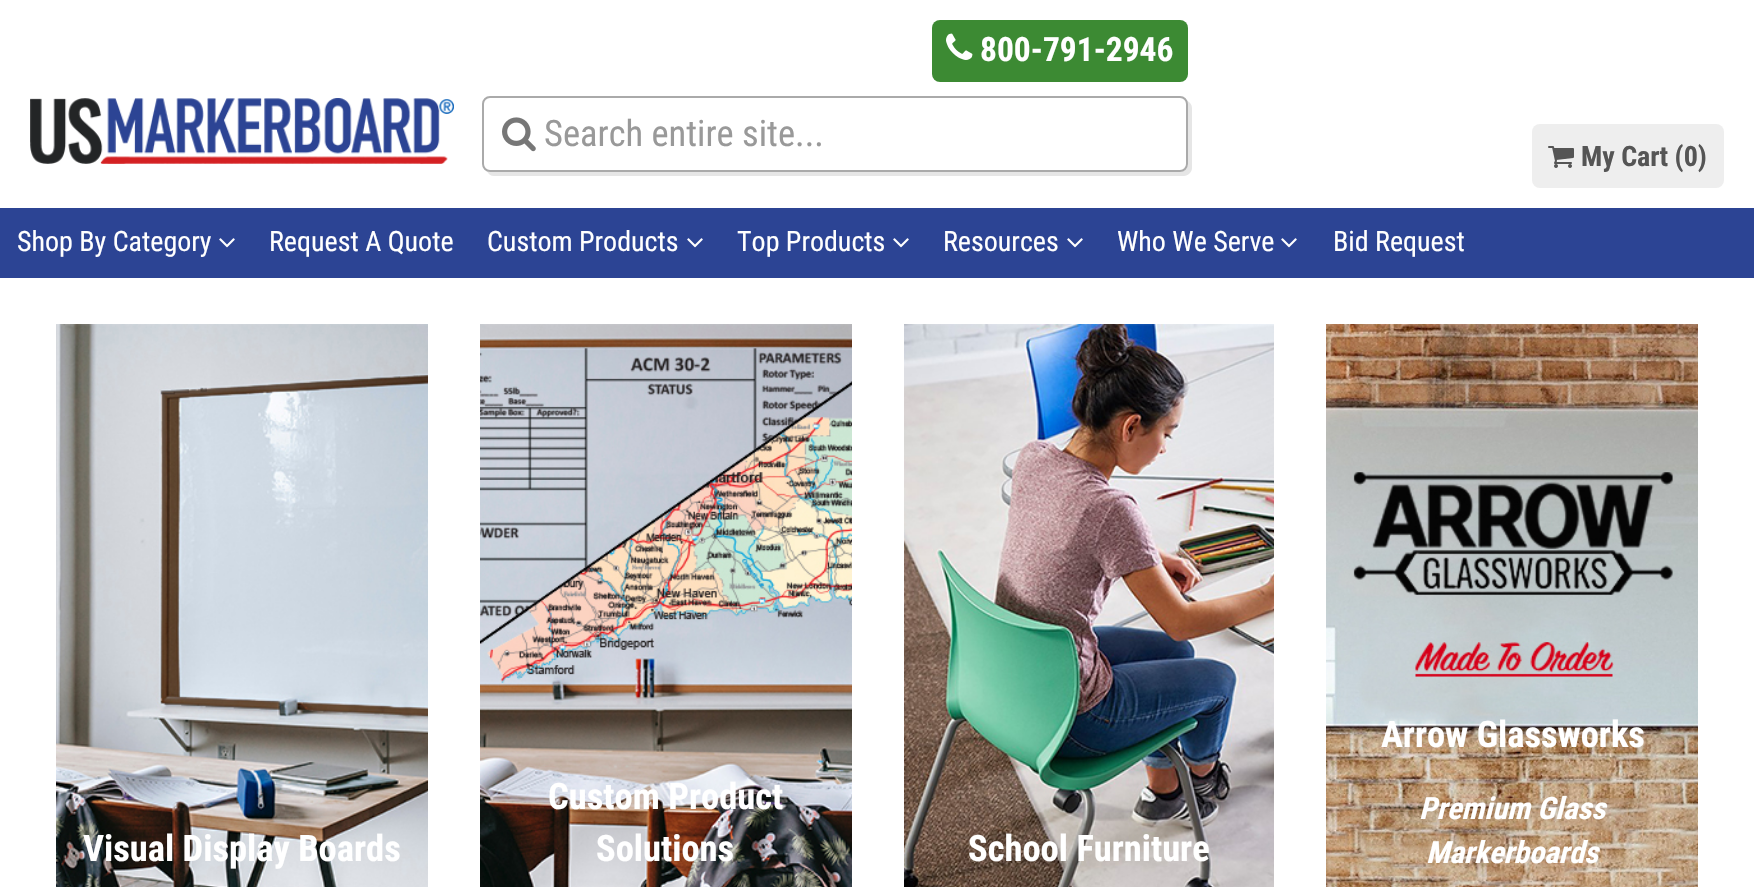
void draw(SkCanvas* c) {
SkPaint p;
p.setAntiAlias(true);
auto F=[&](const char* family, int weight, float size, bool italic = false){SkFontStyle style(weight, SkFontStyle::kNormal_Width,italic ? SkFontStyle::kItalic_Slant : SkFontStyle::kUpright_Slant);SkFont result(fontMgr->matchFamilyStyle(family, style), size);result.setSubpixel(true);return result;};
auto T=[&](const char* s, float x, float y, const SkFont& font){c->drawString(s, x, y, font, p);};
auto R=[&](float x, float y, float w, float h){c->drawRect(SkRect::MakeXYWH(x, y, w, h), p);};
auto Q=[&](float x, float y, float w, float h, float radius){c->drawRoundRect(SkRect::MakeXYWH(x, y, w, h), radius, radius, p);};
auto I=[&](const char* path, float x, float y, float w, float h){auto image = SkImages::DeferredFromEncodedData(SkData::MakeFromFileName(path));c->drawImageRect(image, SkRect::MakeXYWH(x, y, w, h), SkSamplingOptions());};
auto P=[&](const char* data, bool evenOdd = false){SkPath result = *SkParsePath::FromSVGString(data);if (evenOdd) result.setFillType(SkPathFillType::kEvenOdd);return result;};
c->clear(0xffffffff);
I("1.png",30,98,424,66);
p.setColor(0xff3c8a33);
Q(932,20,256,62,8);
I("2.png",946,33,27,27);
auto f1 = F("Roboto Condensed",700,33.5);
p.setColor(0xffffffff);
T("800-791-2946",980,61,f1);
p.setColor(0xffe6e6e6);
c->drawPath(P("M487 171c1 3 4 5 7 5h690c4 0 8-4 8-8v-60c0-3-2-6-5-7l1 3v60c0 4-4 8-8 8h-690z"),p);
p.setColor(0xffffffff);
c->drawRoundRect(SkRect::MakeXYWH(483,97,704,74),7,7,p);
p.setStroke(true);
p.setStrokeWidth(2);
p.setColor(0xffaaaaaa);
c->drawRoundRect(SkRect::MakeXYWH(483,97,704,74),7,7,p);
I("3.png",502,117,34,35);
auto f2 = F("Roboto Condensed",400,36.5);
p.setStroke(false);
p.setColor(0xff999999);
T("Search entire site...",544,146,f2);
p.setColor(0xffeeeeee);
Q(1532,124,192,64,8);
I("4.png",1548,146,26,22);
auto f3 = F("Roboto Condensed",700,28);
p.setColor(0xff555555);
T("My Cart (0)",1581,166,f3);
p.setColor(0xff2c4494);
R(0,208,1754,70);
auto f4 = F("Roboto Condensed",400,28);
p.setColor(0xffffffff);
T("Shop By Category",17,251,f4);
I("5.png",219,238,16,10);
T("Request A Quote",269,251,f4);
T("Custom Products",487,251,f4);
I("5.png",687,238,16,10);
T("Top Products",737,251,f4);
I("5.png",893,238,16,10);
T("Resources",943,251,f4);
I("5.png",1067,238,16,10);
T("Who We Serve",1117,251,f4);
I("5.png",1281,238,16,10);
T("Bid Request",1333,251,f4);
I("6.png",56,324,372,563);
auto f5 = F("Roboto Condensed",700,36.5);
T("Visual Display Boards",83,861,f5);
I("7.png",480,324,372,563);
T("Custom Product",548,809,f5);
T("Solutions",596,861,f5);
I("8.png",904,324,370,563);
T("School Furniture",968,861,f5);
I("9.png",1326,324,372,563);
T("Arrow Glassworks",1381,747,f5);
auto f6 = F("Roboto Condensed",700,30.75,true);
T("Premium Glass",1419,819,f6);
T("Markerboards",1426,863,f6);
}
